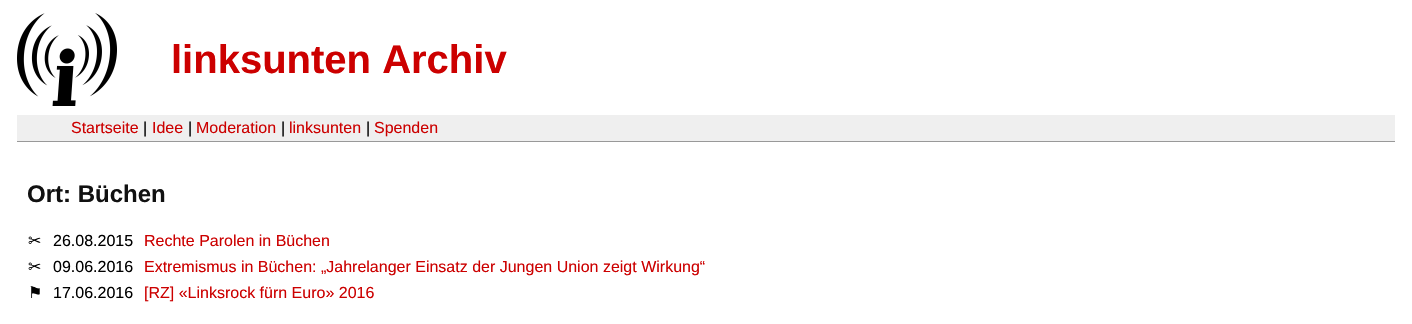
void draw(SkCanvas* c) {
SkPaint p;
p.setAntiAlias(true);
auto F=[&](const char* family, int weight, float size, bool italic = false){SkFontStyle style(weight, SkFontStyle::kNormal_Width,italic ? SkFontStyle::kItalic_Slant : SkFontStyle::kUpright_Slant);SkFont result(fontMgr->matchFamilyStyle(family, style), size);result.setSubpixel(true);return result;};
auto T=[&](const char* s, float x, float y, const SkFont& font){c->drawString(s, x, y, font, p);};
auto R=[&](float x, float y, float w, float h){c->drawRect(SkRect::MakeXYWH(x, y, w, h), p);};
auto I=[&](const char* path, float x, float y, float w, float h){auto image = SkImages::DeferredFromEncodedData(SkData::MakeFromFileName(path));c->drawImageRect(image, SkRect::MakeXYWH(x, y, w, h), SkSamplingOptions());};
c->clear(0xffffffff);
I("1.png",17,13,100,93);
auto f1 = F("Liberation Sans",700,40);
p.setColor(0xffcc0000);
T("linksunten Archiv",171,73,f1);
p.setColor(0xffefefef);
R(17,115,1378,26);
p.setColor(0xff999999);
R(17,141,1378,1);
auto f2 = F("Liberation Sans",400,16);
p.setColor(0xffcc0000);
T("Startseite",71,133,f2);
p.setColor(0xff000000);
T("|",143,133,f2);
p.setColor(0xffcc0000);
T("Idee",152,133,f2);
p.setColor(0xff000000);
T("|",188,133,f2);
p.setColor(0xffcc0000);
T("Moderation",196,133,f2);
p.setColor(0xff000000);
T("|",281,133,f2);
p.setColor(0xffcc0000);
T("linksunten",289,133,f2);
p.setColor(0xff000000);
T("|",366,133,f2);
p.setColor(0xffcc0000);
T("Spenden",374,133,f2);
auto f3 = F("Liberation Sans",700,24);
p.setColor(0xff111111);
T("Ort: Büchen",27,202,f3);
auto f4 = F("DejaVu Sans",400,16);
p.setColor(0xff000000);
T("✂",28,246,f4);
T("26.08.2015",53,246,f2);
p.setColor(0xffcc0000);
T("Rechte Parolen in Büchen",144,246,f2);
p.setColor(0xff000000);
T("✂",28,272,f4);
T("09.06.2016",53,272,f2);
p.setColor(0xffcc0000);
T("Extremismus in Büchen: „Jahrelanger Einsatz der Jungen Union zeigt Wirkung“",144,272,f2);
p.setColor(0xff000000);
T("⚑",28,298,f4);
T("17.06.2016",53,298,f2);
p.setColor(0xffcc0000);
T("[RZ] «Linksrock fürn Euro» 2016",144,298,f2);
}
